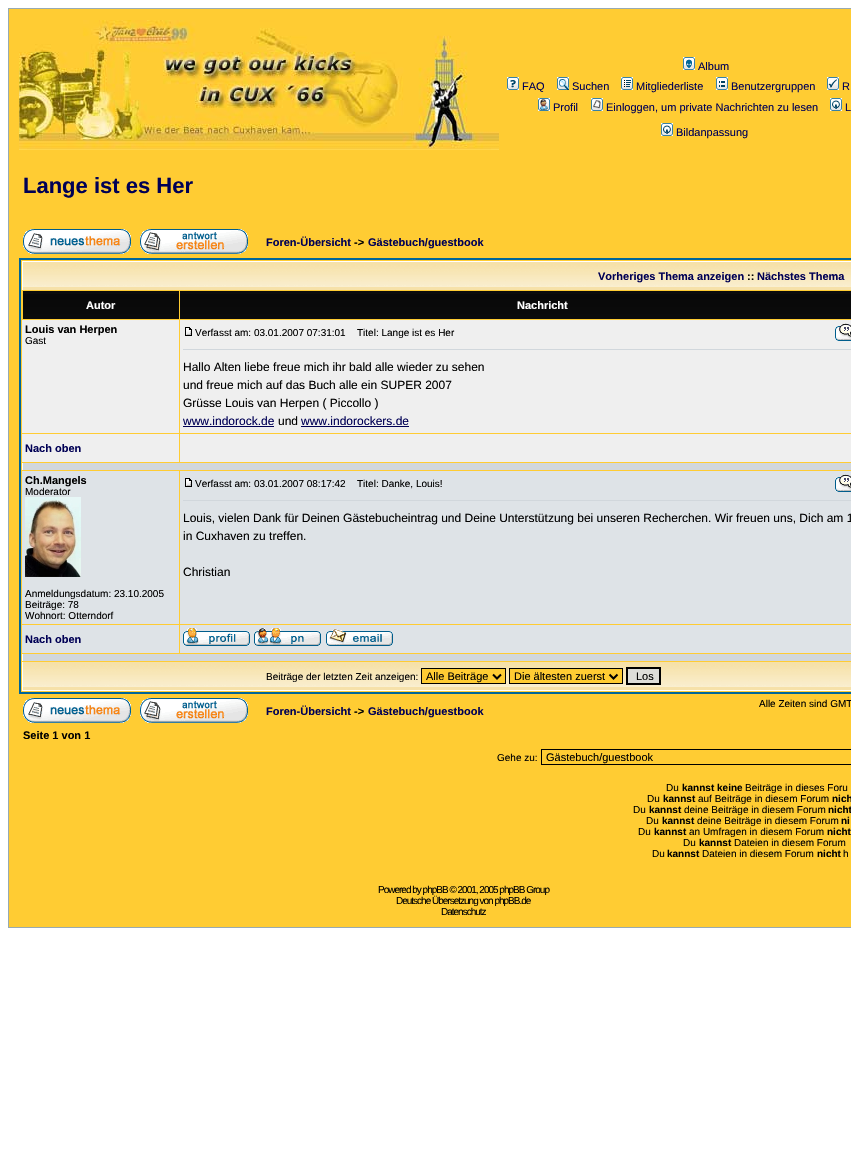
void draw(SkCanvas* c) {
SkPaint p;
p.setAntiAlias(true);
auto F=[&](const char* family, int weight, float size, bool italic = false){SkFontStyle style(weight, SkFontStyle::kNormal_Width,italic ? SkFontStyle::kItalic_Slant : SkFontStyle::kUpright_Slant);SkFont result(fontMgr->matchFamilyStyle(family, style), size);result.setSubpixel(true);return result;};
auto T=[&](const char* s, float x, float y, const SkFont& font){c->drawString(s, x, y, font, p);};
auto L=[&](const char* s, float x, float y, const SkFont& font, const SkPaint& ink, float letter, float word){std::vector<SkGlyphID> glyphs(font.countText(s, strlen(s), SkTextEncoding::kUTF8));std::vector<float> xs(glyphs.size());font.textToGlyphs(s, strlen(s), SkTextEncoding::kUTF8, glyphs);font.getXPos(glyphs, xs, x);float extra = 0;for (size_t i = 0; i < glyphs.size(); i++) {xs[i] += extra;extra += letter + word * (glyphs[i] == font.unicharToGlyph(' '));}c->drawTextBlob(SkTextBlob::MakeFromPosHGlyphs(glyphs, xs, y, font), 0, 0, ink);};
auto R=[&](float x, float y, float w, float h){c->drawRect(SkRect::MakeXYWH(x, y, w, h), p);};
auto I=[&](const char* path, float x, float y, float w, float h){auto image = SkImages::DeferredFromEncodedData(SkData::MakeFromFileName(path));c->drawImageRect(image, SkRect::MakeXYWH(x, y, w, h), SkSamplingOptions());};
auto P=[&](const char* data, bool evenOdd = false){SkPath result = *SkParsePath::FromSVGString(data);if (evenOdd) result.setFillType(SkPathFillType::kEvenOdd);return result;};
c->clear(0xffffffff);
p.setColor(0xffffcc33);
c->drawRect(SkRect::MakeXYWH(8.5,8.5,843,919),p);
p.setStroke(true);
p.setStrokeWidth(1);
p.setColor(0xff98aab1);
c->drawRect(SkRect::MakeXYWH(8.5,8.5,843,919),p);
I("1.png",19,20,480,130);
I("2.png",683,57,12,13);
auto f1 = F("Liberation Sans",400,11);
p.setStroke(false);
p.setColor(0xff000055);
T("Album",698,70,f1);
I("3.png",507,77,12,13);
T("FAQ",522,90,f1);
I("4.png",557,77,12,13);
T("Suchen",572,90,f1);
I("5.png",621,77,12,13);
T("Mitgliederliste",636,90,f1);
I("6.png",716,77,12,13);
T("Benutzergruppen",731,90,f1);
I("7.png",827,77,12,13);
T("R",842,90,f1);
I("8.png",538,98,12,13);
T("Profil",553,111,f1);
I("9.png",591,98,12,13);
T("Einloggen, um private Nachrichten zu lesen",606,111,f1);
I("10.png",830,98,12,13);
T("L",845,111,f1);
I("10.png",661,123,12,13);
T("Bildanpassung",676,136,f1);
auto f2 = F("Liberation Sans",700,22);
T("Lange ist es Her",23,193,f2);
I("11.png",23,229,108,25);
I("12.png",140,229,108,25);
auto f3 = F("Liberation Sans",700,11);
T("Foren-Übersicht",266,246,f3);
p.setColor(0xff000000);
T("->",354,246,f3);
p.setColor(0xff000055);
T("Gästebuch/guestbook",368,246,f3);
p.setStroke(true);
p.setStrokeWidth(2);
p.setColor(0xff006699);
c->drawRect(SkRect::MakeXYWH(20,259,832,434),p);
I("13.png",23,262,828,28);
p.setStroke(false);
p.setColor(0xffffffff);
R(22,261,829,1);
R(22,261,1,29);
p.setColor(0xff000055);
T("Vorheriges Thema anzeigen",598,280,f3);
p.setColor(0xff000000);
T("::",747,280,f3);
p.setColor(0xff000055);
T("Nächstes Thema",757,280,f3);
I("14.png",23,291,156,28);
p.setColor(0xffffffff);
T("Autor",86,309,f3);
I("15.png",180,291,671,28);
T("Nachricht",517,309,f3);
p.setColor(0xffefefef);
R(22,320,157,113);
p.setColor(0xff000000);
T("Louis van Herpen",25,333,f3);
auto f4 = F("Liberation Sans",400,10);
T("Gast",25,344,f4);
p.setColor(0xffefefef);
R(180,320,671,113);
I("16.png",185,327,7,9);
p.setColor(0xff000000);
T("Verfasst am: 03.01.2007 07:31:01",195,336,f4);
T("Titel: Lange ist es Her",357,336,f4);
I("17.png",835,323,16,18);
p.setColor(0xffd1d7dc);
R(183,349,668,1);
auto f5 = F("Liberation Sans",400,12);
p.setColor(0xff000000);
T("Hallo Alten liebe freue mich ihr bald alle wieder zu sehen",183,371,f5);
T("und freue mich auf das Buch alle ein SUPER 2007",183,389,f5);
T("Grüsse Louis van Herpen ( Piccollo )",183,407,f5);
p.setColor(0xff000055);
T("www.indorock.de",183,425,f5);
R(183,426,91,1);
p.setColor(0xff000000);
T("und",278,425,f5);
p.setColor(0xff000055);
T("www.indorockers.de",301,425,f5);
R(301,426,108,1);
p.setColor(0xffefefef);
R(22,434,157,28);
p.setColor(0xff000055);
T("Nach oben",25,452,f3);
p.setColor(0xffefefef);
R(180,434,671,28);
p.setColor(0xffd1d7dc);
R(23,463,828,7);
p.setColor(0xffffffff);
R(22,463,1,7);
p.setColor(0xffdee3e7);
R(22,471,157,153);
p.setColor(0xff000000);
T("Ch.Mangels",25,484,f3);
T("Moderator",25,495,f4);
I("18.png",25,497,56,80);
T("Anmeldungsdatum: 23.10.2005",25,597,f4);
T("Beiträge: 78",25,608,f4);
T("Wohnort: Otterndorf",25,619,f4);
p.setColor(0xffdee3e7);
R(180,471,671,153);
I("19.png",185,478,7,9);
p.setColor(0xff000000);
T("Verfasst am: 03.01.2007 08:17:42",195,487,f4);
T("Titel: Danke, Louis!",357,487,f4);
I("20.png",835,474,16,18);
p.setColor(0xffd1d7dc);
R(183,500,668,1);
p.setColor(0xff000000);
T("Louis, vielen Dank für Deinen Gästebucheintrag und Deine Unterstützung bei unseren Recherchen. Wir freuen uns, Dich am 1",183,522,f5);
T("in Cuxhaven zu treffen.",183,540,f5);
T("Christian",183,576,f5);
p.setColor(0xffdee3e7);
R(22,625,157,28);
p.setColor(0xff000055);
T("Nach oben",25,643,f3);
p.setColor(0xffdee3e7);
R(180,625,671,28);
I("21.png",183,628,67,18);
I("22.png",254,628,67,18);
I("23.png",326,628,67,18);
p.setColor(0xffd1d7dc);
R(23,654,828,7);
p.setColor(0xffffffff);
R(22,654,1,7);
I("13.png",23,662,828,28);
R(22,690,829,1);
R(22,662,1,29);
p.setColor(0xff000000);
T("Beiträge der letzten Zeit anzeigen:",266,680,f4);
p.setColor(0xffffcc33);
c->drawRect(SkRect::MakeXYWH(421.5,668.5,84,15),p);
p.setStroke(true);
p.setStrokeWidth(1);
p.setColor(0xff000000);
c->drawRect(SkRect::MakeXYWH(421.5,668.5,84,15),p);
p.setStrokeWidth(2);
c->drawPath(P("M493 674.5l4 4l4-4"),p);
p.setStroke(false);
T("Alle Beiträge",426,680,f1);
p.setColor(0xffffcc33);
c->drawRect(SkRect::MakeXYWH(509.5,668.5,113,15),p);
p.setStroke(true);
p.setStrokeWidth(1);
p.setColor(0xff000000);
c->drawRect(SkRect::MakeXYWH(509.5,668.5,113,15),p);
p.setStrokeWidth(2);
c->drawPath(P("M609.5 674.5l4 4l4-4"),p);
p.setStroke(false);
T("Die ältesten zuerst",514,680,f1);
p.setColor(0xffddddd9);
c->drawRect(SkRect::MakeXYWH(627,668,33,16),p);
p.setStroke(true);
p.setColor(0xff000000);
c->drawRect(SkRect::MakeXYWH(627,668,33,16),p);
p.setStroke(false);
T("Los",636,680,f1);
I("11.png",23,698,108,25);
I("12.png",140,698,108,25);
T("Alle Zeiten sind GMT",759,707,f4);
p.setColor(0xff000055);
T("Foren-Übersicht",266,715,f3);
p.setColor(0xff000000);
T("->",354,715,f3);
p.setColor(0xff000055);
T("Gästebuch/guestbook",368,715,f3);
p.setColor(0xff000000);
T("Seite 1 von 1",23,739,f3);
T("Gehe zu:",497,761,f4);
p.setStroke(true);
p.setStrokeWidth(1);
c->drawRect(SkRect::MakeXYWH(541.5,749.5,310,15),p);
p.setStroke(false);
T("Gästebuch/guestbook",546,761,f1);
T("Du",666,791,f4);
auto f6 = F("Liberation Sans",700,10);
T("kannst keine",682,791,f6);
T("Beiträge in dieses Foru",745,791,f4);
T("Du",647,802,f4);
T("kannst",663,802,f6);
T("auf Beiträge in diesem Forum",698,802,f4);
T("nich",832,802,f6);
T("Du",633,813,f4);
T("kannst",649,813,f6);
T("deine Beiträge in diesem Forum",684,813,f4);
T("nicht",828,813,f6);
T("Du",646,824,f4);
T("kannst",662,824,f6);
T("deine Beiträge in diesem Forum",697,824,f4);
T("ni",841,824,f6);
T("Du",638,835,f4);
T("kannst",654,835,f6);
T("an Umfragen in diesem Forum",689,835,f4);
T("nicht",827,835,f6);
T("Du",683,846,f4);
T("kannst",699,846,f6);
T("Dateien in diesem Forum",734,846,f4);
T("Du",652,857,f4);
T("kannst",667,857,f6);
T("Dateien in diesem Forum",702,857,f4);
T("nicht",817,857,f6);
T("h",843,857,f4);
L("Powered by phpBB © 2001, 2005 phpBB Group",378,893,f4,p,-1,0);
L("Deutsche Übersetzung von phpBB.de",396,904,f4,p,-1,0);
L("Datenschutz",441,915,f4,p,-1,0);
}
